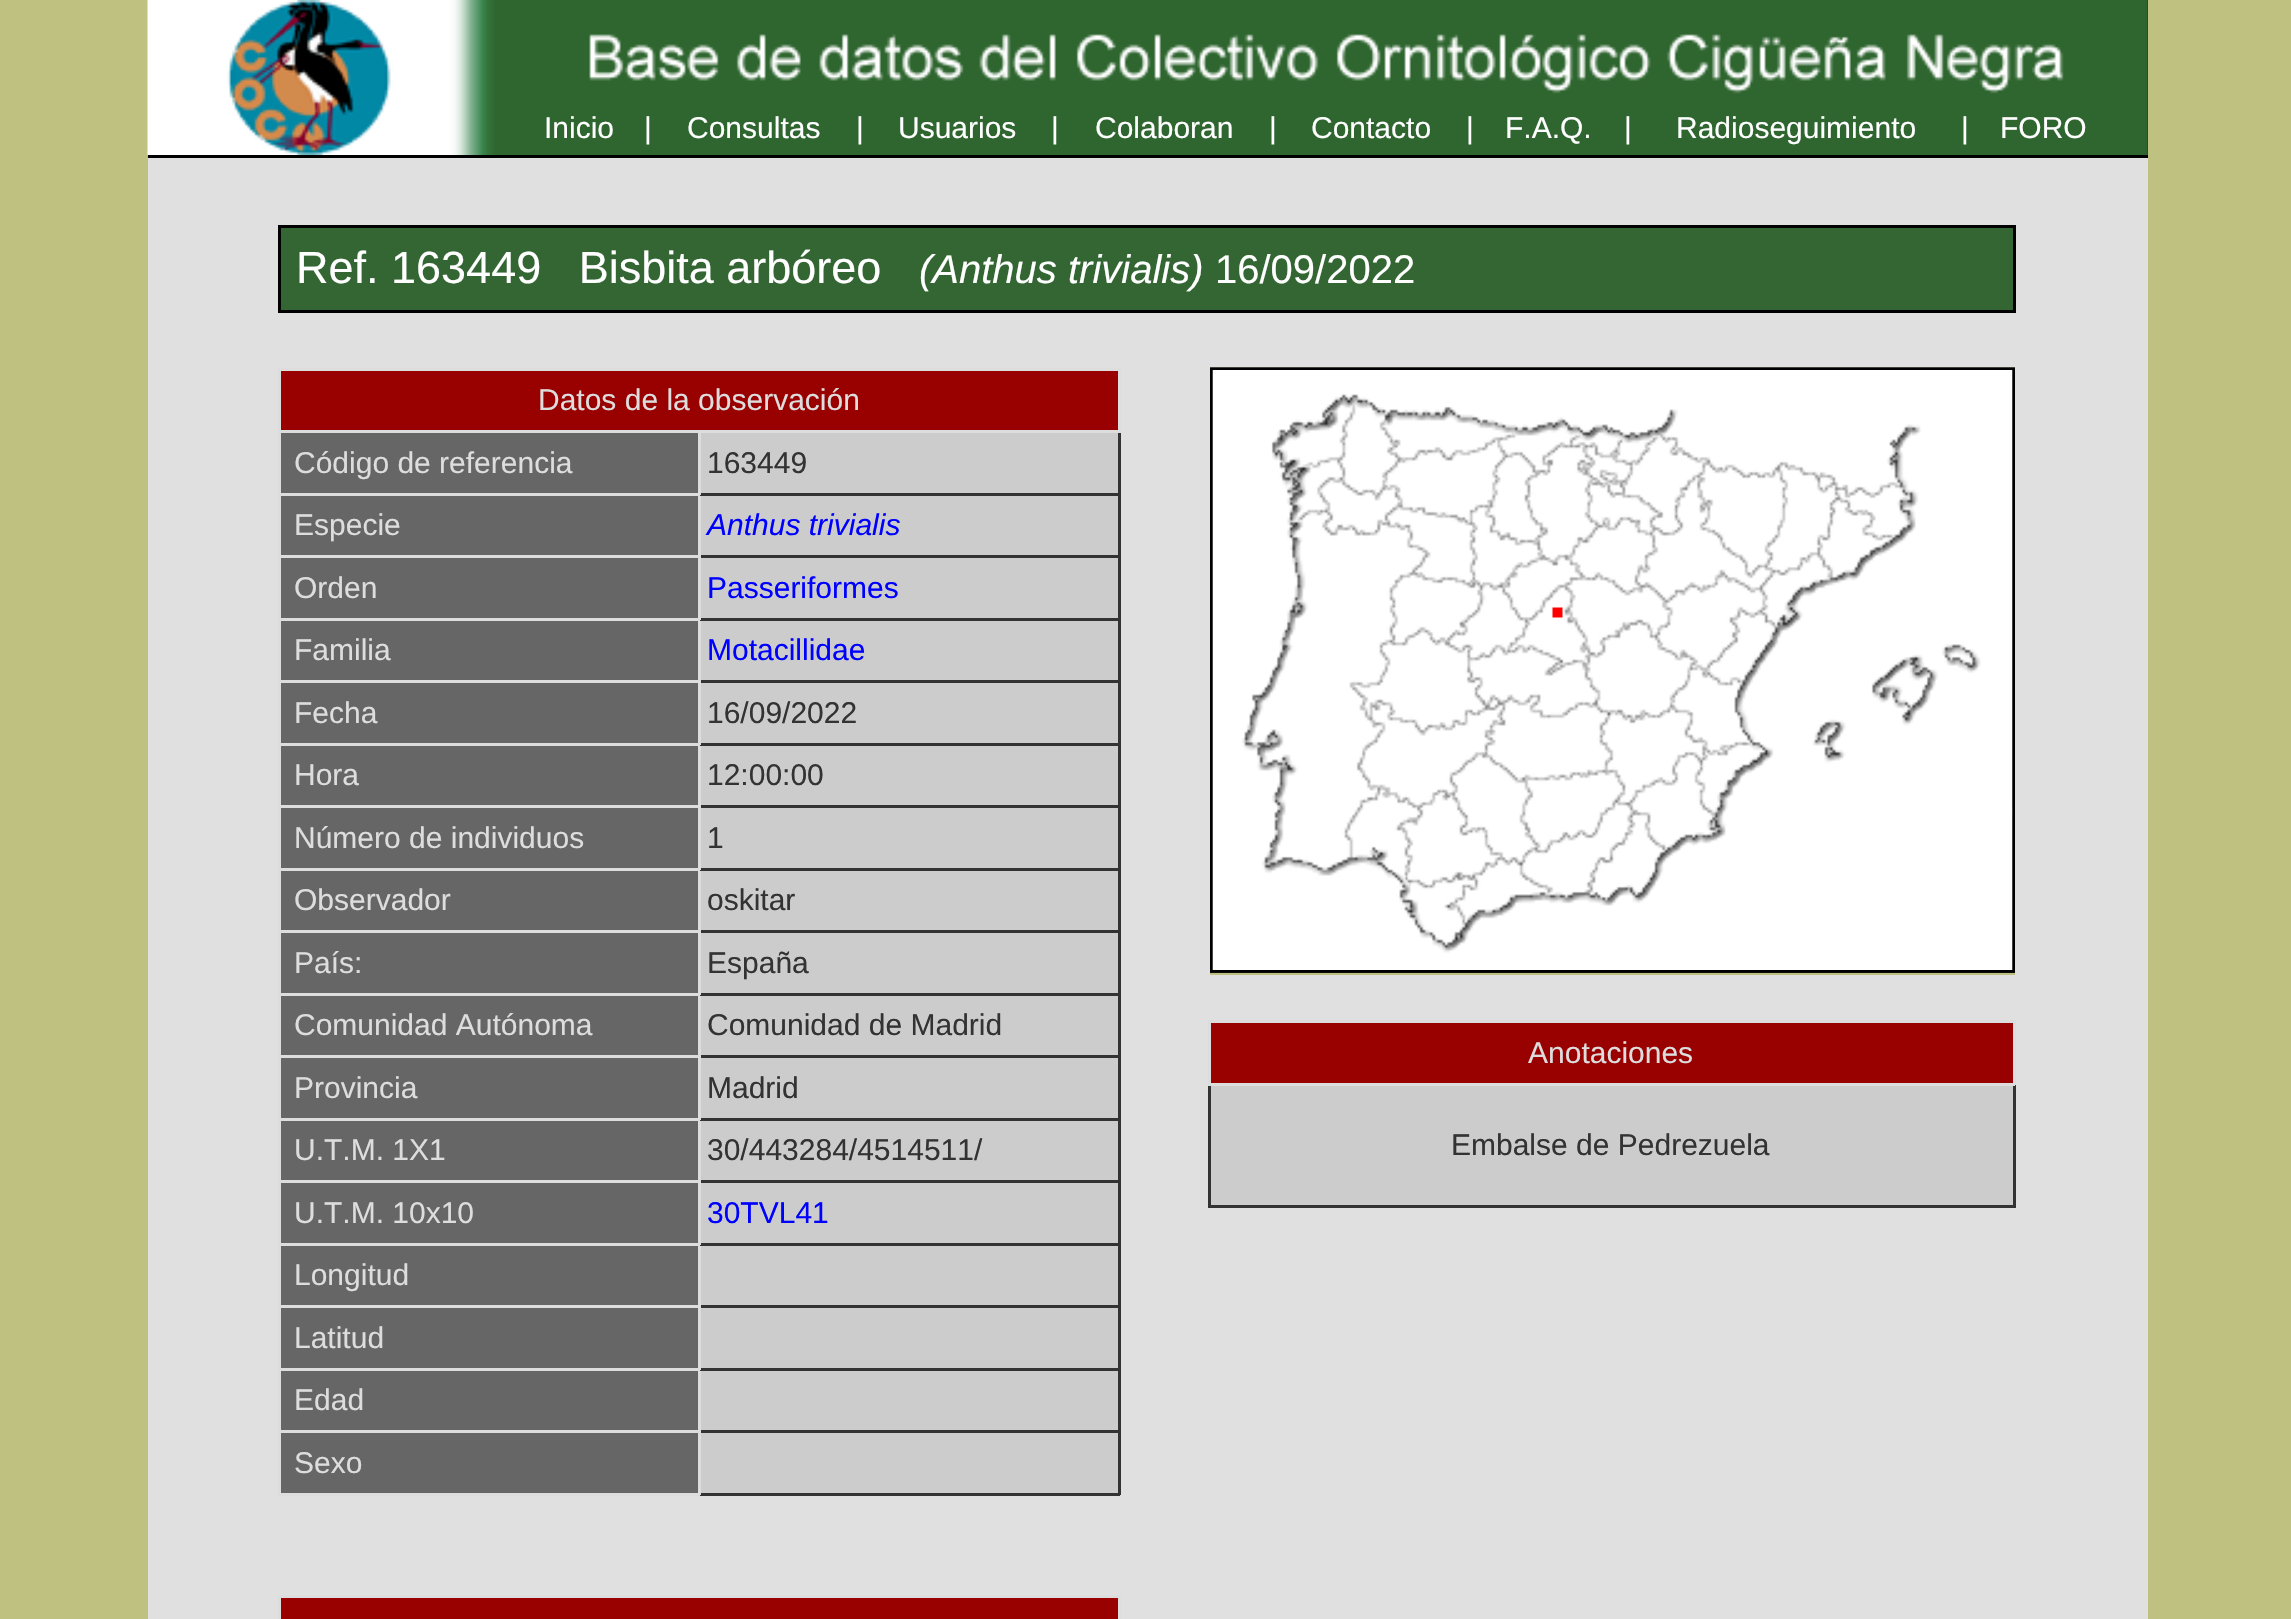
void draw(SkCanvas* c) {
SkPaint p;
p.setAntiAlias(true);
auto F=[&](const char* family, int weight, float size, bool italic = false){SkFontStyle style(weight, SkFontStyle::kNormal_Width,italic ? SkFontStyle::kItalic_Slant : SkFontStyle::kUpright_Slant);SkFont result(fontMgr->matchFamilyStyle(family, style), size);result.setSubpixel(true);return result;};
auto T=[&](const char* s, float x, float y, const SkFont& font){c->drawString(s, x, y, font, p);};
auto R=[&](float x, float y, float w, float h){c->drawRect(SkRect::MakeXYWH(x, y, w, h), p);};
auto I=[&](const char* path, float x, float y, float w, float h){auto image = SkImages::DeferredFromEncodedData(SkData::MakeFromFileName(path));c->drawImageRect(image, SkRect::MakeXYWH(x, y, w, h), SkSamplingOptions());};
c->clear(0xffbfc180);
p.setColor(0xff990000);
R(2147,0,1,155);
I("1.png",147,0,2001,155);
auto f1 = F("Liberation Sans",400,30);
p.setColor(0xffffffff);
T("Inicio",544,138,f1);
T("|",644,138,f1);
T("Consultas",687,138,f1);
T("|",856,138,f1);
T("Usuarios",898,138,f1);
T("|",1051,138,f1);
T("Colaboran",1095,138,f1);
T("|",1269,138,f1);
T("Contacto",1311,138,f1);
T("|",1466,138,f1);
T("F.A.Q.",1505,138,f1);
T("|",1624,138,f1);
T("Radioseguimiento",1676,138,f1);
T("|",1961,138,f1);
T("FORO",2000,138,f1);
p.setColor(0xffe0e0e0);
R(148,158,2000,1461);
p.setColor(0xff000000);
R(148,155,2000,3);
R(278,225,1737,3);
R(2013,225,3,88);
R(278,310,1737,3);
R(278,225,3,88);
p.setColor(0xff336633);
R(281,228,1732,82);
auto f2 = F("Liberation Sans",400,45);
p.setColor(0xffffffff);
T("Ref. 163449   Bisbita arbóreo",296,283,f2);
auto f3 = F("Liberation Sans",400,40,true);
T("(Anthus trivialis)",919,283,f3);
auto f4 = F("Liberation Sans",400,40);
T("16/09/2022",1215,283,f4);
p.setColor(0xff990000);
R(281,371,837,59);
p.setColor(0xffdddddd);
R(278,368,842,3);
p.setColor(0xff333333);
R(1118,430,3,1065);
p.setColor(0xffdddddd);
R(1118,368,3,65);
R(278,555,422,3);
R(278,680,422,3);
R(278,805,422,3);
R(278,930,422,3);
R(278,1055,422,3);
R(278,1180,422,3);
R(278,1305,422,3);
R(278,1430,422,3);
p.setColor(0xff333333);
R(698,1493,422,3);
p.setColor(0xffdddddd);
R(698,1430,3,65);
p.setColor(0xff333333);
R(698,1430,422,3);
p.setColor(0xffdddddd);
R(698,1368,3,65);
p.setColor(0xff333333);
R(698,1368,422,3);
p.setColor(0xffdddddd);
R(698,1305,3,65);
p.setColor(0xff333333);
R(698,1305,422,3);
p.setColor(0xffdddddd);
R(698,1243,3,65);
p.setColor(0xff333333);
R(698,1243,422,3);
p.setColor(0xffdddddd);
R(698,1180,3,65);
p.setColor(0xff333333);
R(698,1180,422,3);
p.setColor(0xffdddddd);
R(698,1118,3,65);
p.setColor(0xff333333);
R(698,1118,422,3);
p.setColor(0xffdddddd);
R(698,1055,3,65);
p.setColor(0xff333333);
R(698,1055,422,3);
p.setColor(0xffdddddd);
R(698,993,3,65);
p.setColor(0xff333333);
R(698,993,422,3);
p.setColor(0xffdddddd);
R(698,930,3,65);
p.setColor(0xff333333);
R(698,930,422,3);
p.setColor(0xffdddddd);
R(698,868,3,65);
p.setColor(0xff333333);
R(698,868,422,3);
p.setColor(0xffdddddd);
R(698,805,3,65);
p.setColor(0xff333333);
R(698,805,422,3);
p.setColor(0xffdddddd);
R(698,743,3,65);
p.setColor(0xff333333);
R(698,743,422,3);
p.setColor(0xffdddddd);
R(698,680,3,65);
p.setColor(0xff333333);
R(698,680,422,3);
p.setColor(0xffdddddd);
R(698,618,3,65);
p.setColor(0xff333333);
R(698,618,422,3);
p.setColor(0xffdddddd);
R(698,555,3,65);
p.setColor(0xff333333);
R(698,555,422,3);
p.setColor(0xffdddddd);
R(698,493,3,65);
p.setColor(0xff333333);
R(698,493,422,3);
p.setColor(0xffdddddd);
R(698,430,3,65);
R(278,1493,422,3);
R(278,1368,3,127);
R(278,1368,422,3);
R(278,1243,3,127);
R(278,1243,422,3);
R(278,1118,3,127);
R(278,1118,422,3);
R(278,993,3,127);
R(278,993,422,3);
R(278,868,3,127);
R(278,868,422,3);
R(278,743,3,127);
R(278,743,422,3);
R(278,618,3,127);
R(278,618,422,3);
R(278,493,3,127);
R(278,493,422,3);
R(278,430,3,65);
R(278,430,842,3);
R(278,368,3,65);
T("Datos de la observación",538,410,f1);
p.setColor(0xffcccccc);
R(701,433,417,60);
p.setColor(0xff666666);
R(281,433,417,60);
p.setColor(0xffdddddd);
T("Código de referencia",294,473,f1);
p.setColor(0xff333333);
T("163449",707,473,f1);
p.setColor(0xffcccccc);
R(701,496,417,59);
p.setColor(0xff666666);
R(281,496,417,59);
p.setColor(0xffdddddd);
T("Especie",294,535,f1);
auto f5 = F("Liberation Sans",400,30,true);
p.setColor(0xff0000ff);
T("Anthus trivialis",707,535,f5);
p.setColor(0xffcccccc);
R(701,558,417,60);
p.setColor(0xff666666);
R(281,558,417,60);
p.setColor(0xffdddddd);
T("Orden",294,598,f1);
p.setColor(0xff0000ff);
T("Passeriformes",707,598,f1);
p.setColor(0xffcccccc);
R(701,621,417,59);
p.setColor(0xff666666);
R(281,621,417,59);
p.setColor(0xffdddddd);
T("Familia",294,660,f1);
p.setColor(0xff0000ff);
T("Motacillidae",707,660,f1);
p.setColor(0xffcccccc);
R(701,683,417,60);
p.setColor(0xff666666);
R(281,683,417,60);
p.setColor(0xffdddddd);
T("Fecha",294,723,f1);
p.setColor(0xff333333);
T("16/09/2022",707,723,f1);
p.setColor(0xffcccccc);
R(701,746,417,59);
p.setColor(0xff666666);
R(281,746,417,59);
p.setColor(0xffdddddd);
T("Hora",294,785,f1);
p.setColor(0xff333333);
T("12:00:00",707,785,f1);
p.setColor(0xffcccccc);
R(701,808,417,60);
p.setColor(0xff666666);
R(281,808,417,60);
p.setColor(0xffdddddd);
T("Número de individuos",294,848,f1);
p.setColor(0xff333333);
T("1",707,848,f1);
p.setColor(0xffcccccc);
R(701,871,417,59);
p.setColor(0xff666666);
R(281,871,417,59);
p.setColor(0xffdddddd);
T("Observador",294,910,f1);
p.setColor(0xff333333);
T("oskitar",707,910,f1);
p.setColor(0xffcccccc);
R(701,933,417,60);
p.setColor(0xff666666);
R(281,933,417,60);
p.setColor(0xffdddddd);
T("País:",294,973,f1);
p.setColor(0xff333333);
T("España",707,973,f1);
p.setColor(0xffcccccc);
R(701,996,417,59);
p.setColor(0xff666666);
R(281,996,417,59);
p.setColor(0xffdddddd);
T("Comunidad Autónoma",294,1035,f1);
p.setColor(0xff333333);
T("Comunidad de Madrid",707,1035,f1);
p.setColor(0xffcccccc);
R(701,1058,417,60);
p.setColor(0xff666666);
R(281,1058,417,60);
p.setColor(0xffdddddd);
T("Provincia",294,1098,f1);
p.setColor(0xff333333);
T("Madrid",707,1098,f1);
p.setColor(0xffcccccc);
R(701,1121,417,59);
p.setColor(0xff666666);
R(281,1121,417,59);
p.setColor(0xffdddddd);
T("U.T.M. 1X1",294,1160,f1);
p.setColor(0xff333333);
T("30/443284/4514511/",707,1160,f1);
p.setColor(0xffcccccc);
R(701,1183,417,60);
p.setColor(0xff666666);
R(281,1183,417,60);
p.setColor(0xffdddddd);
T("U.T.M. 10x10",294,1223,f1);
p.setColor(0xff0000ff);
T("30TVL41",707,1223,f1);
p.setColor(0xffcccccc);
R(701,1246,417,59);
p.setColor(0xff666666);
R(281,1246,417,59);
p.setColor(0xffdddddd);
T("Longitud",294,1285,f1);
p.setColor(0xffcccccc);
R(701,1308,417,60);
p.setColor(0xff666666);
R(281,1308,417,60);
p.setColor(0xffdddddd);
T("Latitud",294,1348,f1);
p.setColor(0xffcccccc);
R(701,1371,417,59);
p.setColor(0xff666666);
R(281,1371,417,59);
p.setColor(0xffdddddd);
T("Edad",294,1410,f1);
p.setColor(0xffcccccc);
R(701,1433,417,60);
p.setColor(0xff666666);
R(281,1433,417,60);
p.setColor(0xffdddddd);
T("Sexo",294,1473,f1);
I("2.png",1210,367,805,608);
p.setColor(0xff990000);
R(1211,1023,802,60);
p.setColor(0xffdddddd);
R(1208,1020,807,3);
p.setColor(0xff333333);
R(2013,1083,3,125);
p.setColor(0xffdddddd);
R(2013,1020,3,65);
p.setColor(0xff333333);
R(1208,1205,807,3);
R(1208,1083,3,125);
p.setColor(0xffdddddd);
R(1208,1083,807,3);
R(1208,1020,3,65);
T("Anotaciones",1528,1063,f1);
p.setColor(0xffcccccc);
R(1211,1086,802,119);
p.setColor(0xff333333);
T("Embalse de Pedrezuela",1451,1155,f1);
p.setColor(0xff990000);
R(281,1598,837,21);
p.setColor(0xffdddddd);
R(278,1595,842,3);
R(1118,1595,3,24);
R(278,1595,3,24);
}
